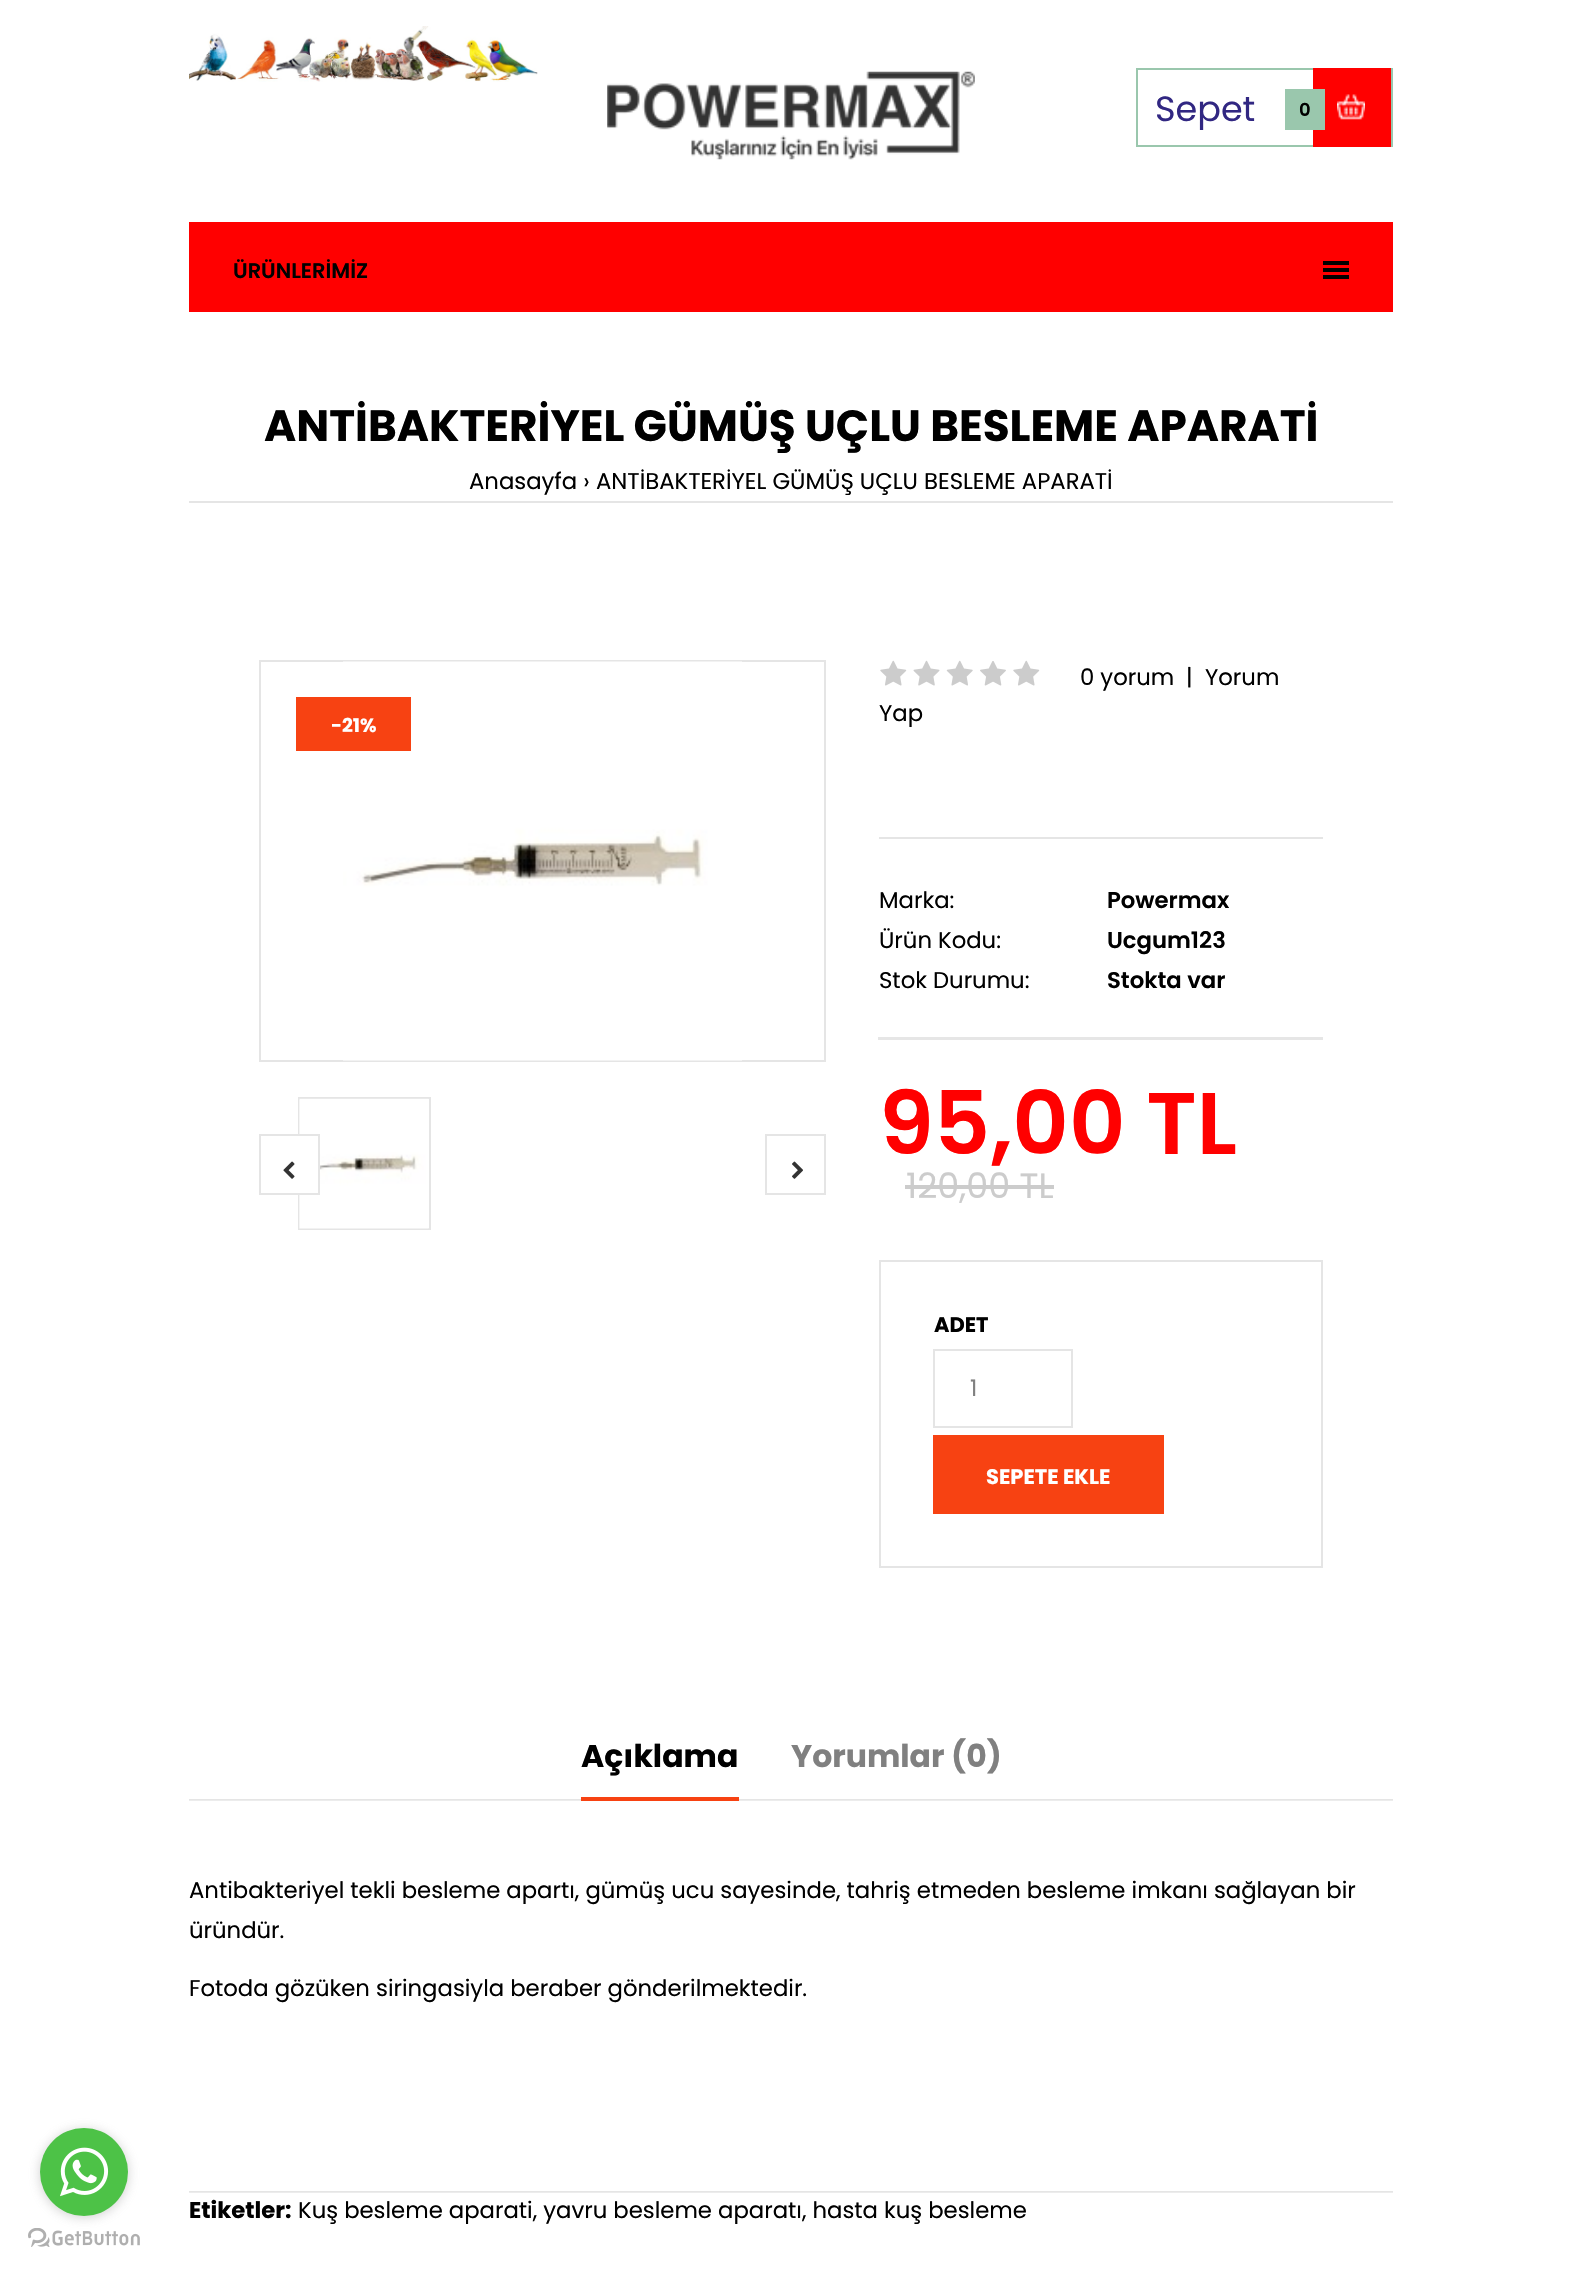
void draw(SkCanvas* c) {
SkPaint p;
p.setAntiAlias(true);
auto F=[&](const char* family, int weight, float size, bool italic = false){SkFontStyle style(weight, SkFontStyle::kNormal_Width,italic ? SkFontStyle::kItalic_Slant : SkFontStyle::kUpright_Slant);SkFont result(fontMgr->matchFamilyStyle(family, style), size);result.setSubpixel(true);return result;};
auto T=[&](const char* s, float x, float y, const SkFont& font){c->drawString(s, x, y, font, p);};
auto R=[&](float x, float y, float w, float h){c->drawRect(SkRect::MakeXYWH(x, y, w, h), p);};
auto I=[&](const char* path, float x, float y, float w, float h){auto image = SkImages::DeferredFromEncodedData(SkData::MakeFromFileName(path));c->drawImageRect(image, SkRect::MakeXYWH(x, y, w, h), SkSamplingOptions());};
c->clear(0xffffffff);
I("2.png",28,2228,112,19);
p.setColor(0x66888888);
p.setMaskFilter(SkMaskFilter::MakeBlur(kNormal_SkBlurStyle, 6));
c->drawRoundRect(SkRect::MakeXYWH(40,2130,88,87),43.5,43.5,p);
p.setMaskFilter(nullptr);
p.setColor(0xff4dc247);
c->drawCircle(84,2172,44,p);
I("1.png",60,2147,49,50);
I("3.png",189,26,349,56);
I("4.png",607,71,368,89);
p.setStroke(true);
p.setStrokeWidth(2);
p.setColor(0xff9ac7ad);
c->drawRect(SkRect::MakeXYWH(1137,69,255,77),p);
auto f1 = F("Poppins",400,35);
p.setStroke(false);
p.setColor(0xff312782);
T("Sepet",1155,121,f1);
p.setColor(0xffff0000);
R(1313,68,78,79);
p.setColor(0xff9ac7ad);
R(1285,89,40,41);
auto f2 = F("Poppins",600,18);
p.setColor(0xff000000);
T("0",1299,116,f2);
I("5.png",1337,94,28,26);
p.setColor(0xffff0000);
R(189,222,1204,90);
auto f3 = F("Poppins",600,21);
p.setColor(0xff000000);
T("ÜRÜNLERİMİZ",233,278,f3);
R(1323,261,26,4);
R(1323,268,26,4);
R(1323,275,26,4);
p.setColor(0xffe5e5e5);
R(189,501,1204,2);
auto f4 = F("Poppins",700,43.75);
p.setColor(0xff000000);
T("ANTİBAKTERİYEL GÜMÜŞ UÇLU BESLEME APARATİ",264,441,f4);
auto f5 = F("Poppins",400,22.75);
T("Anasayfa ›",469,489,f5);
T("ANTİBAKTERİYEL GÜMÜŞ UÇLU BESLEME APARATİ",596,489,f5);
p.setStroke(true);
p.setColor(0xffe5e5e5);
c->drawRect(SkRect::MakeXYWH(260,661,565,400),p);
I("6.png",343,661,399,400);
p.setStroke(false);
p.setColor(0xfff74212);
R(296,697,115,54);
auto f6 = F("Poppins",700,19);
p.setColor(0xffffffff);
T("-21%",331,732,f6);
p.setStroke(true);
p.setColor(0xffe5e5e5);
c->drawRect(SkRect::MakeXYWH(299,1098,131,131),p);
I("7.png",299,1098,130,131);
p.setStroke(false);
p.setColor(0xffffffff);
R(298,1136,20,57);
p.setStroke(true);
p.setColor(0xffe5e5e5);
c->drawRect(SkRect::MakeXYWH(260,1135,59,59),p);
I("8.png",283,1161,12,18);
c->drawRect(SkRect::MakeXYWH(766,1135,59,59),p);
I("9.png",792,1161,11,18);
p.setStroke(false);
R(879,837,444,2);
I("10.png",880,660,27,26);
I("11.png",913,660,27,26);
I("12.png",946,660,27,26);
I("13.png",980,661,26,25);
I("10.png",1013,660,27,26);
p.setColor(0xff000000);
T("0 yorum",1080,685,f5);
T("|",1186,685,f5);
T("Yorum",1205,685,f5);
T("Yap",879,721,f5);
p.setColor(0xffe6e6e6);
R(878,1037,445,3);
p.setColor(0xff000000);
T("Marka:",879,908,f5);
auto f7 = F("Poppins",600,22.75);
T("Powermax",1107,908,f7);
T("Ürün Kodu:",879,948,f5);
T("Ucgum123",1107,948,f7);
T("Stok Durumu:",879,988,f5);
T("Stokta var",1107,988,f7);
auto f8 = F("Poppins",600,87.5);
p.setColor(0xffff0000);
T("95,00 TL",879,1154,f8);
p.setColor(0xffcccccc);
T("120,00 TL",906,1198,f1);
R(905,1185,149,4);
p.setStroke(true);
p.setColor(0xffe5e5e5);
c->drawRect(SkRect::MakeXYWH(880,1261,442,306),p);
auto f9 = F("Poppins",700,21);
p.setStroke(false);
p.setColor(0xff000000);
T("ADET",934,1332,f9);
p.setStroke(true);
p.setColor(0xffe5e5e5);
c->drawRect(SkRect::MakeXYWH(934,1350,138,77),p);
p.setStroke(false);
p.setColor(0xff808080);
T("1",970,1396,f5);
p.setColor(0xfff74212);
R(933,1435,231,79);
p.setColor(0xffffffff);
T("SEPETE EKLE",986,1484,f9);
auto f10 = F("Poppins",700,31.5);
p.setColor(0xff000000);
T("Açıklama",581,1767,f10);
I("14.png",189,1799,1204,2);
p.setColor(0xfff74212);
R(581,1797,158,4);
p.setColor(0xff808080);
T("Yorumlar (0)",791,1767,f10);
p.setColor(0xff000000);
T("Antibakteriyel tekli besleme apartı, gümüş ucu sayesinde, tahriş etmeden besleme imkanı sağlayan bir",189,1898,f5);
T("üründür.",189,1938,f5);
T("Fotoda gözüken siringasiyla beraber gönderilmektedir.",189,1996,f5);
I("14.png",189,2191,1204,2);
auto f11 = F("Poppins",700,22.75);
T("Etiketler:",189,2218,f11);
T("Kuş besleme aparati, yavru besleme aparatı, hasta kuş besleme",298,2218,f5);
}
